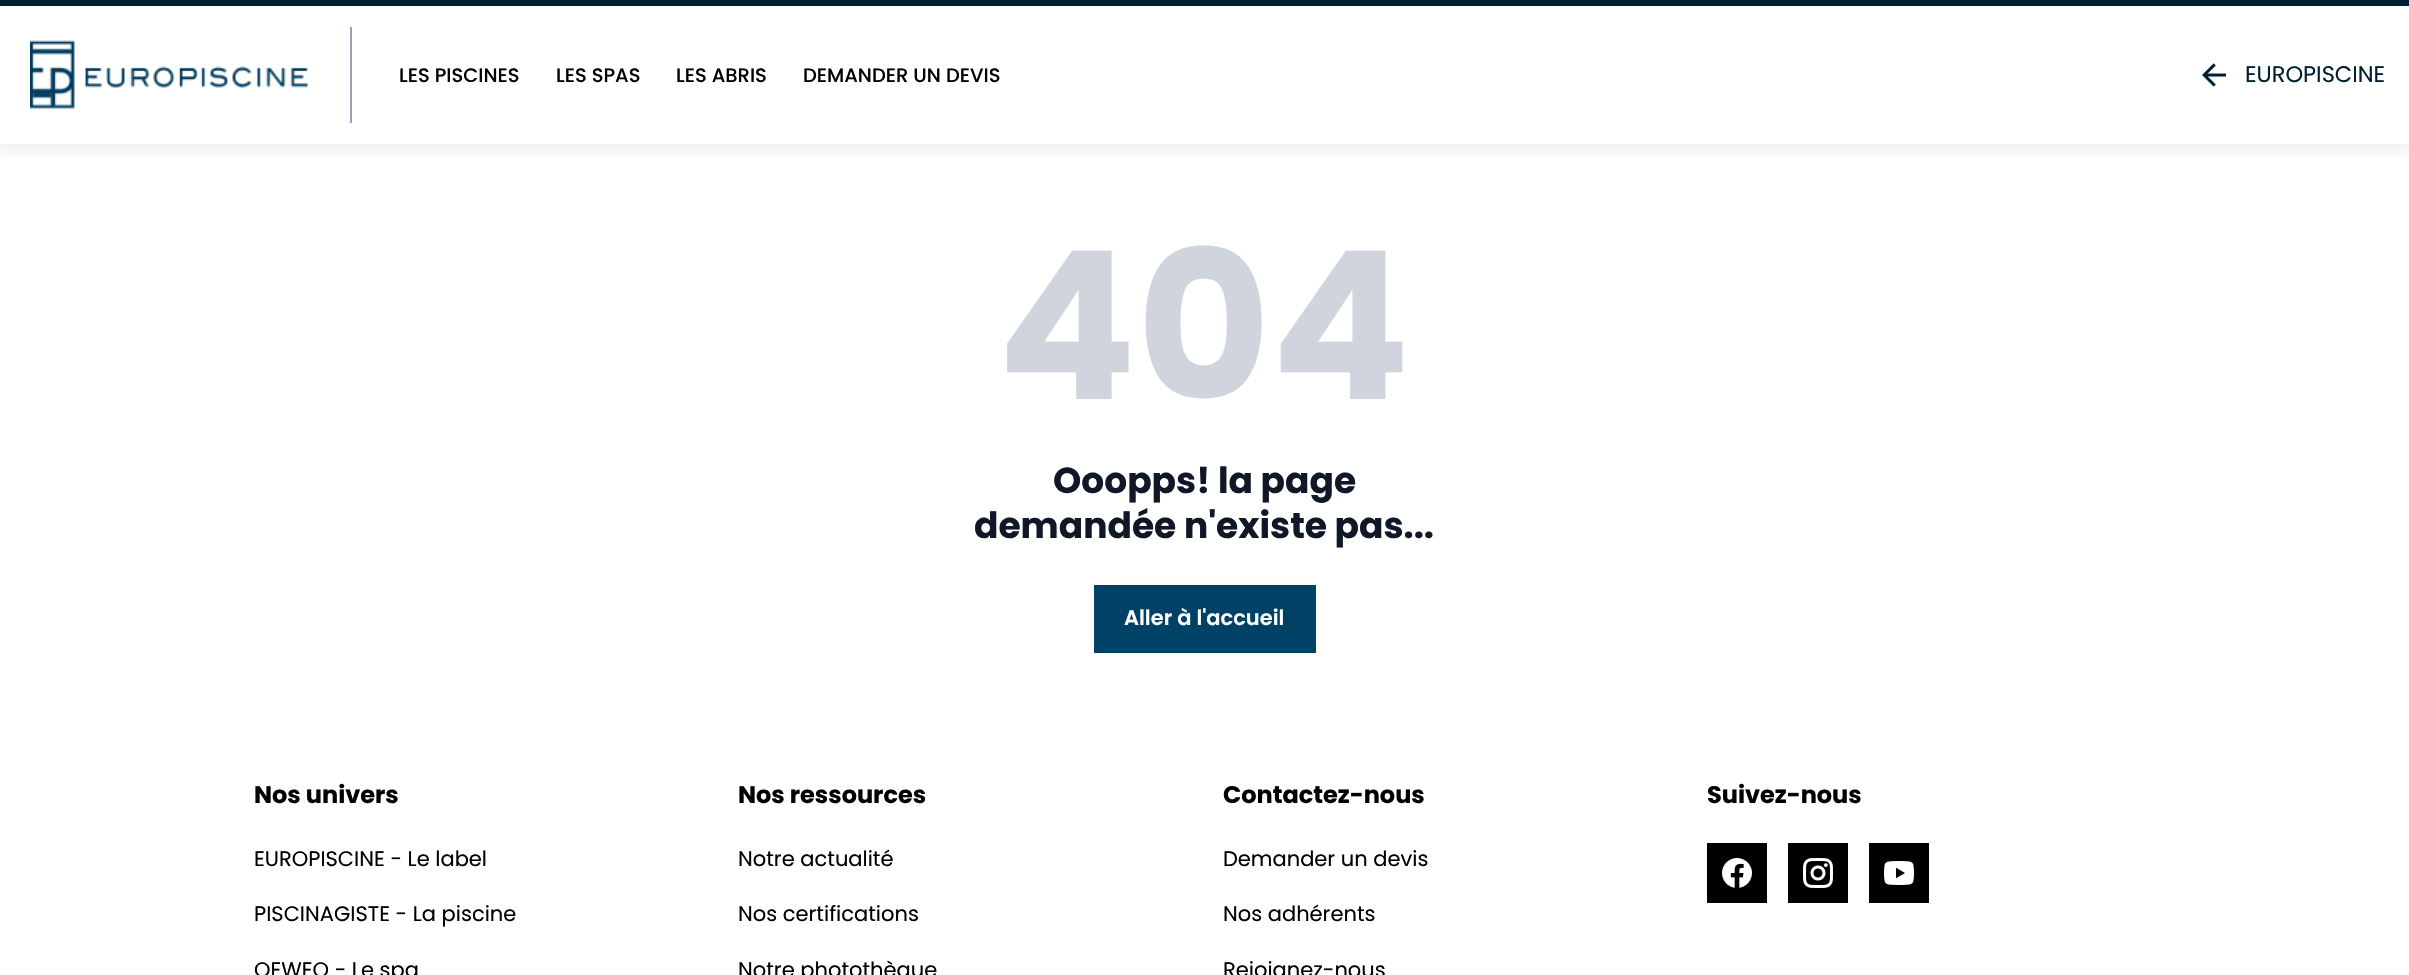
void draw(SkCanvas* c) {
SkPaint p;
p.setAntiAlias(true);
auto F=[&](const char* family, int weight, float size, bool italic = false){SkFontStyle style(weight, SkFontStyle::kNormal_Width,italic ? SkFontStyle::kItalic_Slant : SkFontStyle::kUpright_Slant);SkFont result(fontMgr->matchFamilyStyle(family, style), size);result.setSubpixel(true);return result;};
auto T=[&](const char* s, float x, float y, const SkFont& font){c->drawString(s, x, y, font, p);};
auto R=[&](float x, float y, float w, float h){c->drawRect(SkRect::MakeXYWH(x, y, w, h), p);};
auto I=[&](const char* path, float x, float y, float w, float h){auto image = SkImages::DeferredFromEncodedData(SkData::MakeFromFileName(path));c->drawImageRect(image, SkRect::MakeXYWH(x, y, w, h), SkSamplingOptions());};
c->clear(0xffffffff);
c->save();
c->clipRect(SkRect::MakeXYWH(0,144,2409,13));
p.setColor(0x14000000);
p.setMaskFilter(SkMaskFilter::MakeBlur(kNormal_SkBlurStyle, 10.5));
c->drawRect(SkRect::MakeXYWH(0,6,2409,144),p);
p.setMaskFilter(nullptr);
c->restore();
p.setColor(0xff001e32);
R(0,0,2409,6);
I("1.png",30,40,278,70);
p.setColor(0xff98a2b3);
R(350,27,2,96);
auto f1 = F("Poppins",500,19.5);
p.setColor(0xff000000);
T("LES PISCINES",399,82,f1);
T("LES SPAS",556,82,f1);
T("LES ABRIS",676,82,f1);
T("DEMANDER UN DEVIS",803,82,f1);
I("2.png",2202,63,24,24);
auto f2 = F("Poppins",400,22.5);
p.setColor(0xff001e32);
T("EUROPISCINE",2245,82,f2);
auto f3 = F("Poppins",700,206);
p.setColor(0xffd0d5dd);
T("404",997,399,f3);
auto f4 = F("Poppins",700,36);
p.setColor(0xff101828);
T("Ooopps! la page",1053,493,f4);
T("demandée n'existe pas...",974,538,f4);
p.setColor(0xff004266);
R(1094,585,222,68);
auto f5 = F("Poppins",600,21);
p.setColor(0xffffffff);
T("Aller à l'accueil",1124,625,f5);
auto f6 = F("Poppins",700,24);
p.setColor(0xff000000);
T("Nos univers",254,803,f6);
auto f7 = F("Poppins",400,21);
T("EUROPISCINE - Le label",254,866,f7);
T("PISCINAGISTE - La piscine",254,921,f7);
T("OEWEO - Le spa",254,977,f7);
T("Nos ressources",738,803,f6);
T("Notre actualité",738,866,f7);
T("Nos certifications",738,921,f7);
T("Notre photothèque",738,977,f7);
T("Contactez-nous",1223,803,f6);
T("Demander un devis",1223,866,f7);
T("Nos adhérents",1223,921,f7);
T("Rejoignez-nous",1223,977,f7);
T("Suivez-nous",1707,803,f6);
R(1707,843,60,60);
I("3.png",1722,858,30,30);
R(1788,843,60,60);
I("4.png",1803,858,30,30);
R(1869,843,60,60);
I("5.png",1884,861,30,24);
}
